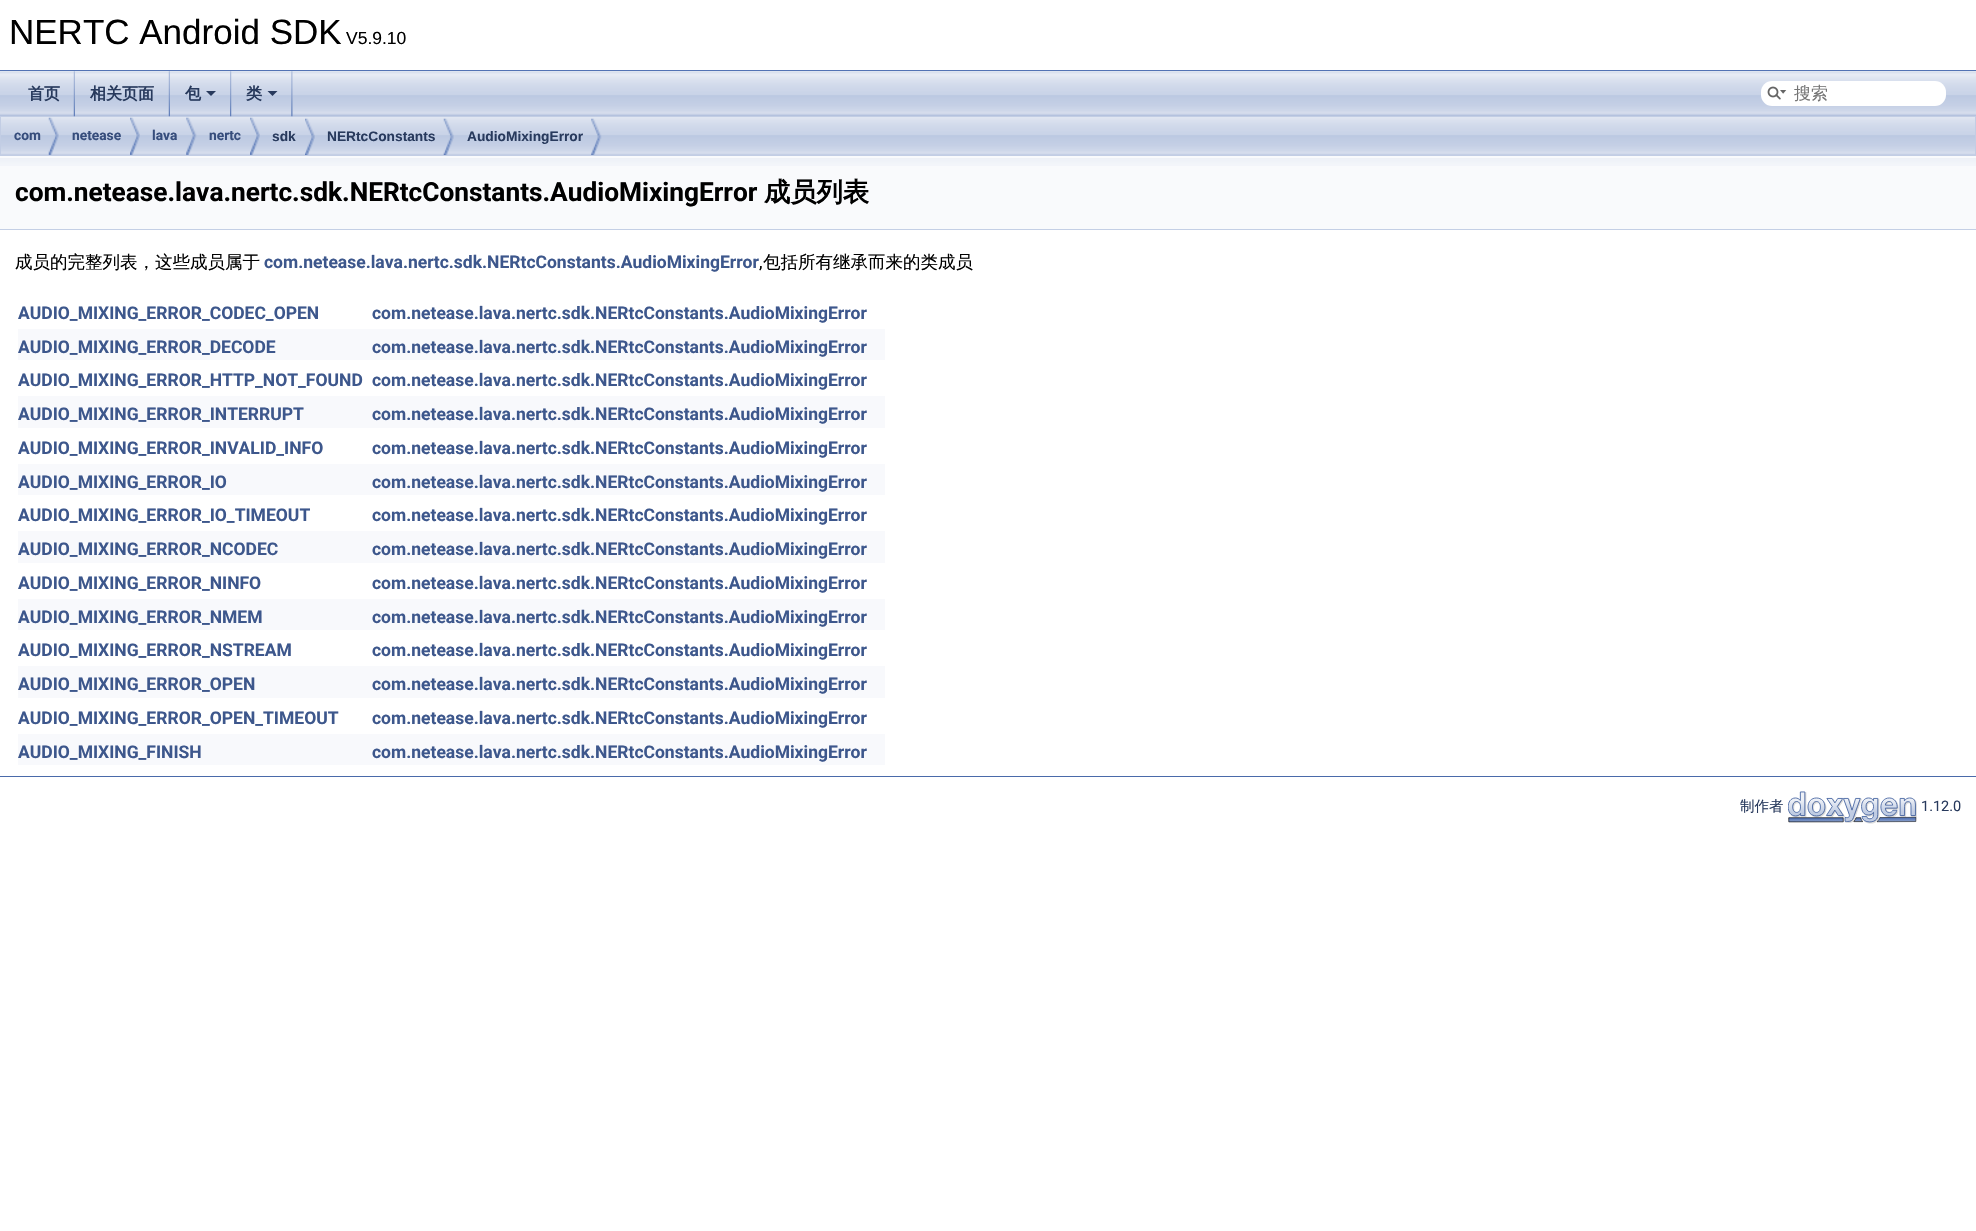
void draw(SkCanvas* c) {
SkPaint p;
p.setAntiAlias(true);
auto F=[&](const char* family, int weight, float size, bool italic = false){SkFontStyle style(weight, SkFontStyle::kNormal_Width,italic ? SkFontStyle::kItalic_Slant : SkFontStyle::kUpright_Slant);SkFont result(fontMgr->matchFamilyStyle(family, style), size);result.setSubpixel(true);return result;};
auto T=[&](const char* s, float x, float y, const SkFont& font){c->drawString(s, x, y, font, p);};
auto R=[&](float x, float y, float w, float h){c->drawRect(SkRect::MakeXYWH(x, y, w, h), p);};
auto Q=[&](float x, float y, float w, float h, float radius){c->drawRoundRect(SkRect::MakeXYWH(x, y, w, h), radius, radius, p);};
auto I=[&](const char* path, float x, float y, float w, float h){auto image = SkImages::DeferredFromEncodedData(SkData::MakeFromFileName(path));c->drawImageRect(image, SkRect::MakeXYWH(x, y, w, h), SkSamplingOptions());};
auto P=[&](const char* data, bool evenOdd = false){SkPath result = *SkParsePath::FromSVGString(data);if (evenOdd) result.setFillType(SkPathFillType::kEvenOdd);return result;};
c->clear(0xffffffff);
p.setColor(0xff5373b4);
R(0,70,1976,1);
auto f1 = F("Liberation Sans",400,35);
p.setColor(0xff000000);
T("NERTC Android SDK",9,44,f1);
auto f2 = F("Liberation Sans",400,17.5);
T("V5.9.10",346,44,f2);
I("1.png",0,71,1976,45);
I("6.png",1,117,1974,38);
p.setStroke(true);
p.setStrokeWidth(1);
p.setColor(0xffc2cde4);
c->drawRect(SkRect::MakeXYWH(.5,116.5,1975,39),p);
I("2.png",73,71,2,46);
auto f3 = F("WenQuanYi Zen Hei",700,16);
p.setStroke(false);
p.setColor(0xff283a5d);
T("首页",28,99,f3);
I("2.png",168,71,2,46);
T("相关页面",90,99,f3);
I("3.png",230,71,2,46);
T("包",185,99,f3);
c->drawPath(P("M206 91h10l-5 5z"),p);
I("4.png",291,71,2,46);
T("类",246,99,f3);
c->drawPath(P("M267.5 91h10l-5 5z"),p);
p.setColor(0xffffffff);
Q(1761,81,185,25,11);
I("5.png",1767,86,20,14);
auto f4 = F("WenQuanYi Zen Hei",500,17);
p.setColor(0xff757575);
T("搜索",1794,99,f4);
I("7.png",48,117,11,38);
auto f5 = F("Roboto",700,13.75);
p.setColor(0xff364d7c);
T("com",14,140,f5);
I("8.png",130,117,10,38);
T("netease",72,140,f5);
I("9.png",186,117,11,38);
T("lava",152,140,f5);
I("8.png",250,117,10,38);
T("nertc",209,140,f5);
I("10.png",305,118,10,37);
auto f6 = F("Liberation Sans",700,13.75);
p.setColor(0xff283a5d);
T("sdk",272,141,f6);
I("11.png",443,118,11,37);
T("NERtcConstants",327,141,f6);
I("12.png",591,118,11,37);
T("AudioMixingError",467,141,f6);
p.setColor(0xfff9fafc);
R(0,156,1976,73);
I("13.png",0,158,1976,8);
p.setColor(0xffc4cfe5);
R(0,229,1976,1);
auto f7 = F("Roboto",700,26.25);
p.setColor(0xff000000);
T("com.netease.lava.nertc.sdk.NERtcConstants.AudioMixingError",15,201,f7);
auto f8 = F("WenQuanYi Zen Hei",700,26.25);
T("成员列表",764,201,f8);
auto f9 = F("WenQuanYi Zen Hei",500,17.5);
T("成员的完整列表，这些成员属于",15,268,f9);
auto f10 = F("Roboto",700,17.5);
p.setColor(0xff3d578c);
T("com.netease.lava.nertc.sdk.NERtcConstants.AudioMixingError",264,268,f10);
auto f11 = F("Roboto",400,17.5);
p.setColor(0xff000000);
T(",",759,268,f11);
T("包括所有继承而来的类成员",763,268,f9);
p.setColor(0xff3d578c);
T("AUDIO_MIXING_ERROR_CODEC_OPEN",18,319,f10);
T("com.netease.lava.nertc.sdk.NERtcConstants.AudioMixingError",372,319,f10);
p.setColor(0xfff8f9fc);
R(18,329,867,31);
p.setColor(0xff3d578c);
T("AUDIO_MIXING_ERROR_DECODE",18,353,f10);
T("com.netease.lava.nertc.sdk.NERtcConstants.AudioMixingError",372,353,f10);
T("AUDIO_MIXING_ERROR_HTTP_NOT_FOUND",18,386,f10);
T("com.netease.lava.nertc.sdk.NERtcConstants.AudioMixingError",372,386,f10);
p.setColor(0xfff8f9fc);
R(18,396,867,32);
p.setColor(0xff3d578c);
T("AUDIO_MIXING_ERROR_INTERRUPT",18,420,f10);
T("com.netease.lava.nertc.sdk.NERtcConstants.AudioMixingError",372,420,f10);
T("AUDIO_MIXING_ERROR_INVALID_INFO",18,454,f10);
T("com.netease.lava.nertc.sdk.NERtcConstants.AudioMixingError",372,454,f10);
p.setColor(0xfff8f9fc);
R(18,464,867,31);
p.setColor(0xff3d578c);
T("AUDIO_MIXING_ERROR_IO",18,488,f10);
T("com.netease.lava.nertc.sdk.NERtcConstants.AudioMixingError",372,488,f10);
T("AUDIO_MIXING_ERROR_IO_TIMEOUT",18,521,f10);
T("com.netease.lava.nertc.sdk.NERtcConstants.AudioMixingError",372,521,f10);
p.setColor(0xfff8f9fc);
R(18,531,867,32);
p.setColor(0xff3d578c);
T("AUDIO_MIXING_ERROR_NCODEC",18,555,f10);
T("com.netease.lava.nertc.sdk.NERtcConstants.AudioMixingError",372,555,f10);
T("AUDIO_MIXING_ERROR_NINFO",18,589,f10);
T("com.netease.lava.nertc.sdk.NERtcConstants.AudioMixingError",372,589,f10);
p.setColor(0xfff8f9fc);
R(18,599,867,31);
p.setColor(0xff3d578c);
T("AUDIO_MIXING_ERROR_NMEM",18,623,f10);
T("com.netease.lava.nertc.sdk.NERtcConstants.AudioMixingError",372,623,f10);
T("AUDIO_MIXING_ERROR_NSTREAM",18,656,f10);
T("com.netease.lava.nertc.sdk.NERtcConstants.AudioMixingError",372,656,f10);
p.setColor(0xfff8f9fc);
R(18,666,867,32);
p.setColor(0xff3d578c);
T("AUDIO_MIXING_ERROR_OPEN",18,690,f10);
T("com.netease.lava.nertc.sdk.NERtcConstants.AudioMixingError",372,690,f10);
T("AUDIO_MIXING_ERROR_OPEN_TIMEOUT",18,724,f10);
T("com.netease.lava.nertc.sdk.NERtcConstants.AudioMixingError",372,724,f10);
p.setColor(0xfff8f9fc);
R(18,734,867,31);
p.setColor(0xff3d578c);
T("AUDIO_MIXING_FINISH",18,758,f10);
T("com.netease.lava.nertc.sdk.NERtcConstants.AudioMixingError",372,758,f10);
p.setColor(0xff4a6aaa);
R(0,776,1976,1);
auto f12 = F("WenQuanYi Zen Hei",500,14.5);
p.setColor(0xff283a5d);
T("制作者",1740,811,f12);
I("14.png",1788,791,129,33);
auto f13 = F("Roboto",400,14.5);
T("1.12.0",1921,811,f13);
}
